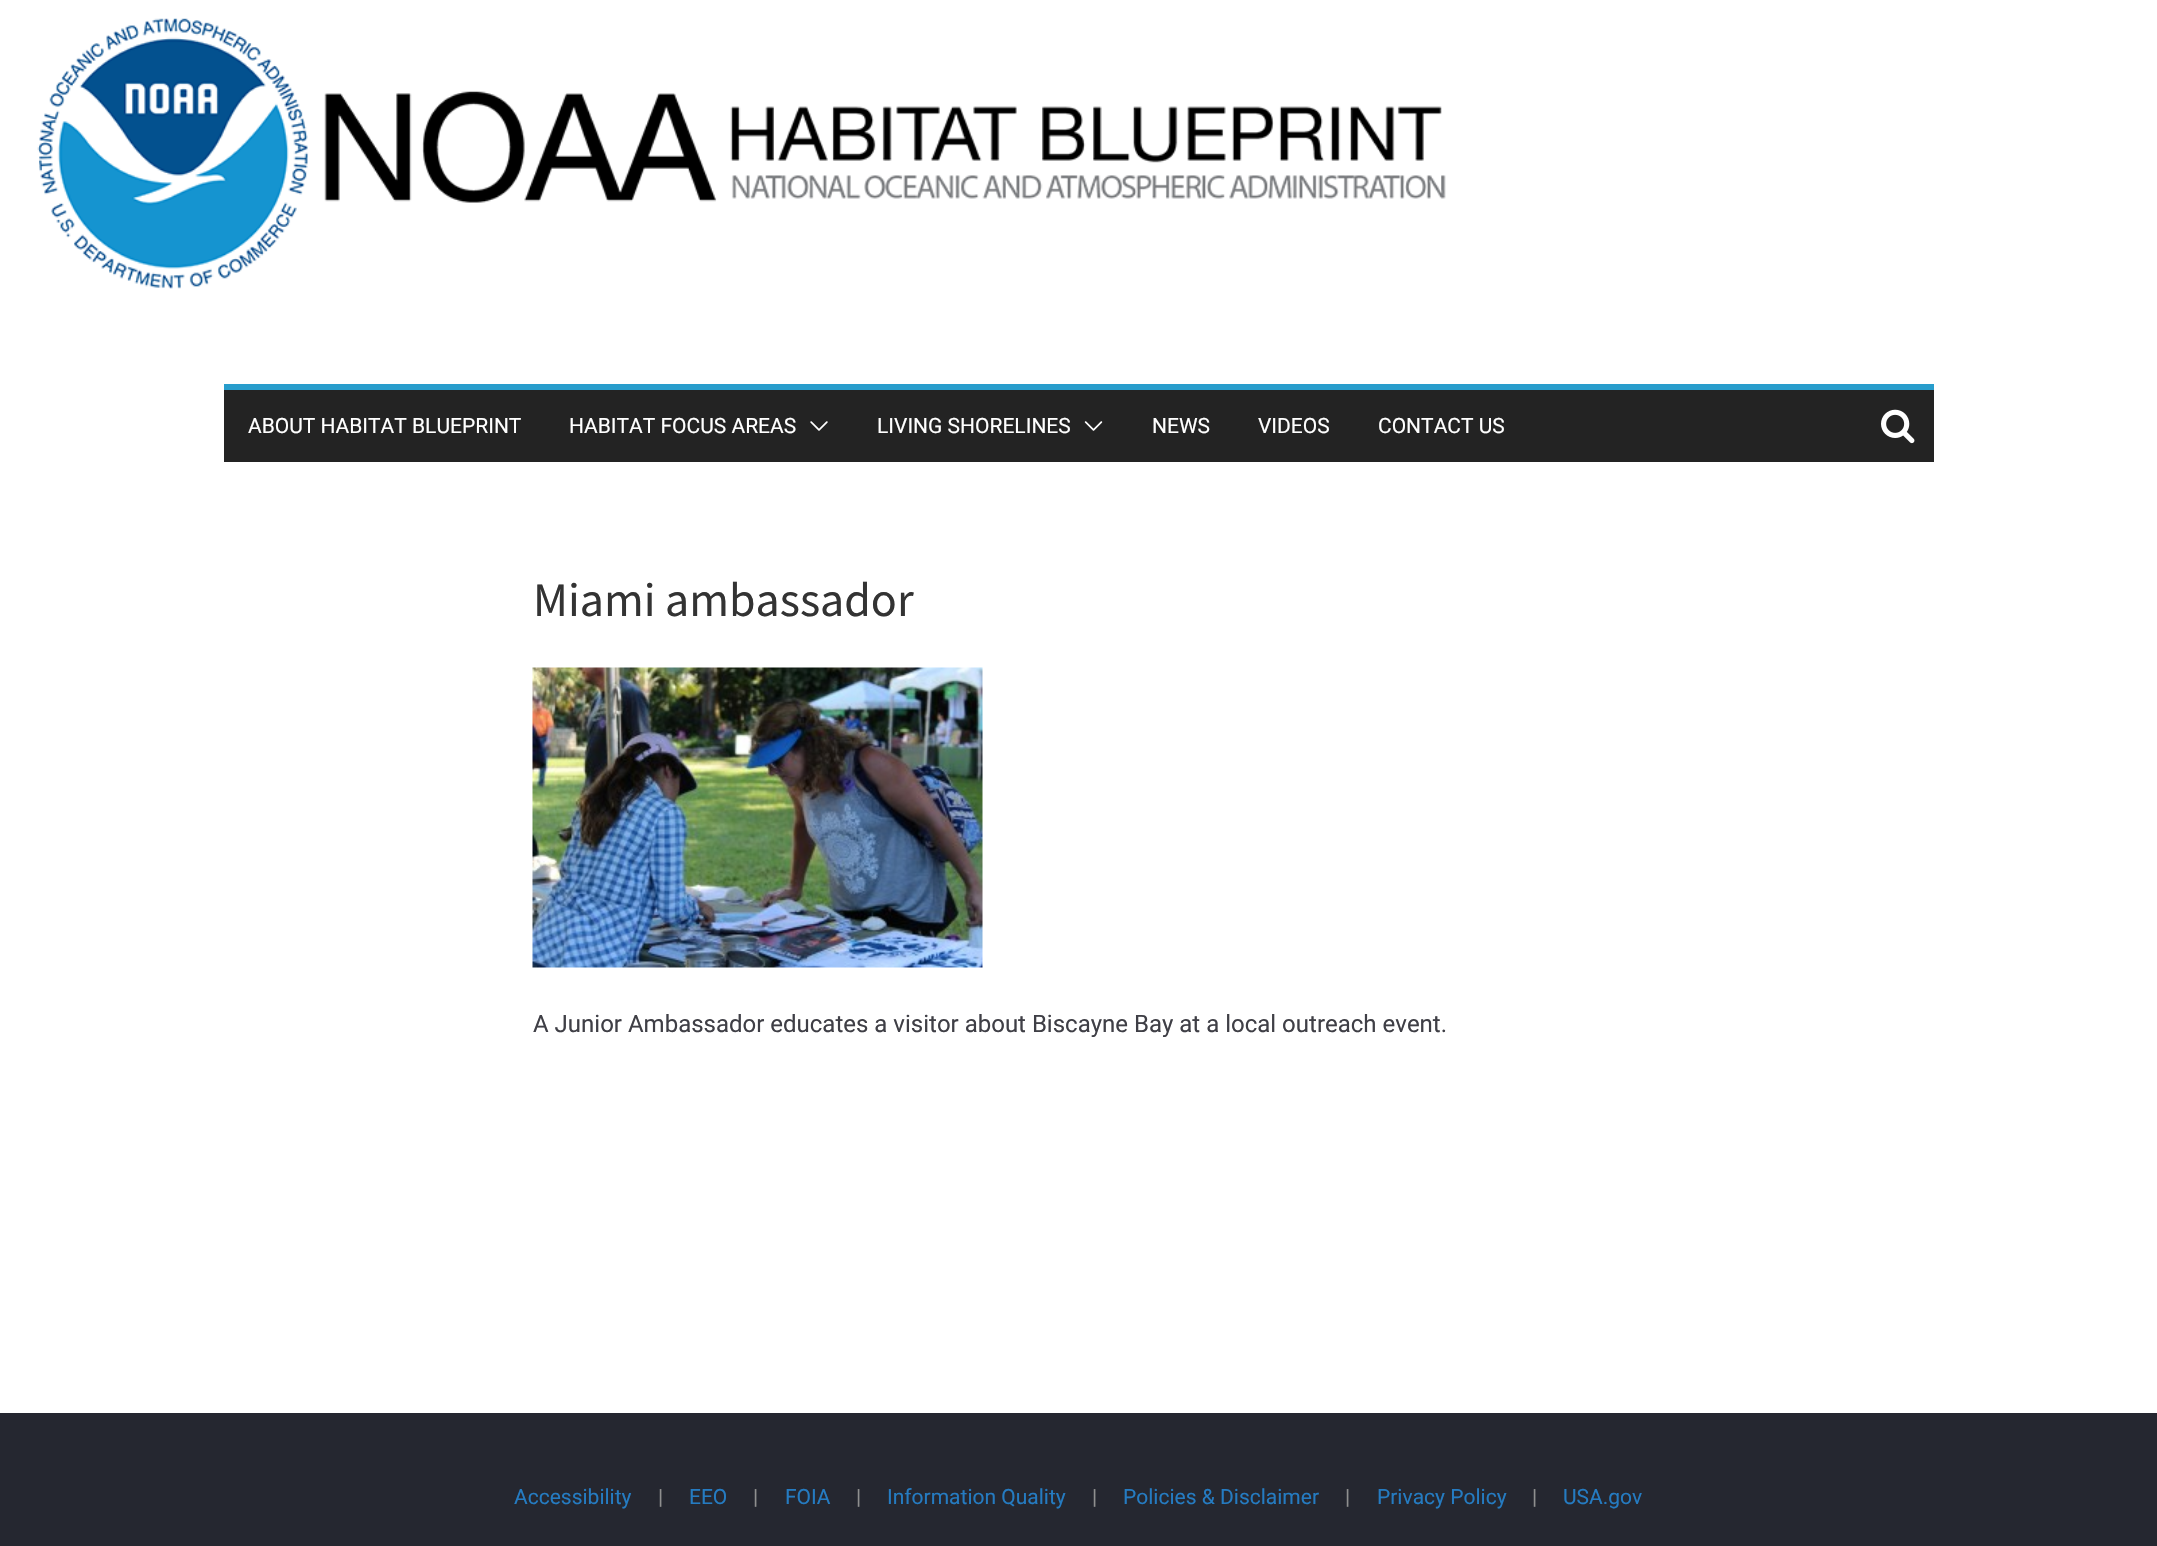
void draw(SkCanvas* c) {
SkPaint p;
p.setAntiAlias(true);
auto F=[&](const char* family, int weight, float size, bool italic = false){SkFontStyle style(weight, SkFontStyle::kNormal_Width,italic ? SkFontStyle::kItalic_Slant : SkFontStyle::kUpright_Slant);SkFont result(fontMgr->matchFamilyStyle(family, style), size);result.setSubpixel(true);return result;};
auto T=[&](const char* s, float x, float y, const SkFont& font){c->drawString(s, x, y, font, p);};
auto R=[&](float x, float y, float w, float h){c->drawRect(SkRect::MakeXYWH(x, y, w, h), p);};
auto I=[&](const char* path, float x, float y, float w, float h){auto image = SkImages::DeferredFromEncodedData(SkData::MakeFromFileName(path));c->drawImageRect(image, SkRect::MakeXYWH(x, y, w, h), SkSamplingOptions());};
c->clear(0xffffffff);
I("1.png",37,18,1409,271);
p.setColor(0xff232323);
R(224,390,1710,72);
p.setColor(0xff289dcc);
R(224,384,1710,6);
auto f1 = F("Roboto",400,21);
p.setColor(0xffffffff);
T("ABOUT HABITAT BLUEPRINT",248,433,f1);
T("HABITAT FOCUS AREAS",569,433,f1);
I("2.png",810,421,18,10);
T("LIVING SHORELINES",877,433,f1);
I("3.png",1084,421,19,10);
T("NEWS",1152,433,f1);
T("VIDEOS",1258,433,f1);
T("CONTACT US",1378,433,f1);
I("4.png",1881,409,34,35);
auto f2 = F("Source Sans Pro",400,48);
p.setColor(0xff333333);
T("Miami ambassador",533,616,f2);
I("5.png",532,667,451,301);
auto f3 = F("Roboto",400,24);
p.setColor(0xff3f3f46);
T("A Junior Ambassador educates a visitor about Biscayne Bay at a local outreach event.",533,1032,f3);
p.setColor(0xff252730);
R(0,1413,2157,133);
p.setColor(0xff257bc1);
T("Accessibility",514,1504,f1);
p.setColor(0xff8f8f8f);
T("|",658,1504,f1);
p.setColor(0xff257bc1);
T("EEO",689,1504,f1);
p.setColor(0xff8f8f8f);
T("|",753,1504,f1);
p.setColor(0xff257bc1);
T("FOIA",785,1504,f1);
p.setColor(0xff8f8f8f);
T("|",856,1504,f1);
p.setColor(0xff257bc1);
T("Information Quality",887,1504,f1);
p.setColor(0xff8f8f8f);
T("|",1092,1504,f1);
p.setColor(0xff257bc1);
T("Policies & Disclaimer",1123,1504,f1);
p.setColor(0xff8f8f8f);
T("|",1345,1504,f1);
p.setColor(0xff257bc1);
T("Privacy Policy",1377,1504,f1);
p.setColor(0xff8f8f8f);
T("|",1532,1504,f1);
p.setColor(0xff257bc1);
T("USA.gov",1563,1504,f1);
}
